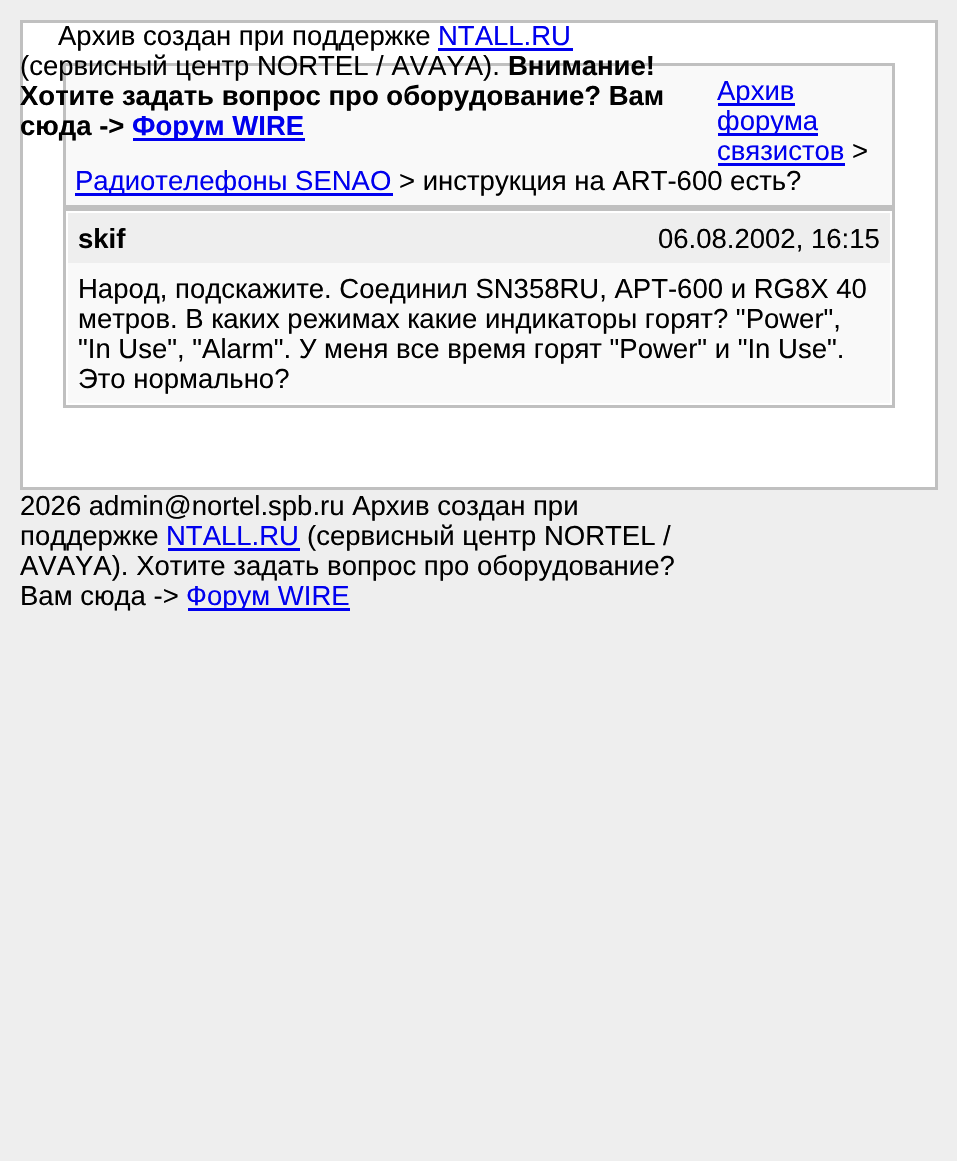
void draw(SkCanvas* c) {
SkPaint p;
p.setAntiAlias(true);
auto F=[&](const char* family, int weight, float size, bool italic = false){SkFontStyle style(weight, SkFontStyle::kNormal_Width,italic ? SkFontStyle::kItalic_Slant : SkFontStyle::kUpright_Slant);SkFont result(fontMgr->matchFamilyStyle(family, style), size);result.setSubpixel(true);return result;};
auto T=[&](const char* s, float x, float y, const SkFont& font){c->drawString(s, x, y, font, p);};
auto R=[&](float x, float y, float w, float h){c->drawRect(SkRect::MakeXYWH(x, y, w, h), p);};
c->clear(0xffeeeeee);
p.setColor(0xffffffff);
c->drawRect(SkRect::MakeXYWH(21.5,21.5,915,467),p);
p.setStroke(true);
p.setStrokeWidth(3);
p.setColor(0xffc0c0c0);
c->drawRect(SkRect::MakeXYWH(21.5,21.5,915,467),p);
auto f1 = F("Liberation Sans",400,27.5);
p.setStroke(false);
p.setColor(0xff000000);
T("Архив создан при поддержке",58,45,f1);
p.setColor(0xff0000ee);
T("NTALL.RU",438,45,f1);
R(438,48,135,3);
p.setColor(0xfff9f9f9);
c->drawRect(SkRect::MakeXYWH(64.5,64.5,829,142),p);
p.setStroke(true);
p.setColor(0xffc0c0c0);
c->drawRect(SkRect::MakeXYWH(64.5,64.5,829,142),p);
p.setStroke(false);
p.setColor(0xff000000);
T("(сервисный центр NORTEL / AVAYA).",20,75,f1);
auto f2 = F("Liberation Sans",700,27.5);
T("Внимание!",508,75,f2);
T("Хотите задать вопрос про оборудование? Вам",20,105,f2);
T("сюда ->",20,135,f2);
p.setColor(0xff0000ee);
R(133,138,172,3);
T("Форум WIRE",132,135,f2);
R(718,103,77,3);
T("Архив",717,100,f1);
R(718,133,100,3);
T("форума",717,130,f1);
T("связистов",717,160,f1);
R(718,163,127,3);
p.setColor(0xff000000);
T(">",852,160,f1);
p.setColor(0xff0000ee);
R(75,193,318,3);
T("Радиотелефоны SENAO",75,190,f1);
p.setColor(0xff000000);
T("> инструкция на ART-600 есть?",399,190,f1);
p.setStroke(true);
p.setColor(0xffc0c0c0);
c->drawRect(SkRect::MakeXYWH(64.5,209.5,829,197),p);
p.setStroke(false);
p.setColor(0xffeeeeee);
R(68,213,822,50);
p.setColor(0xff000000);
T("skif",78,248,f2);
T("06.08.2002, 16:15",658,248,f1);
p.setColor(0xfff9f9f9);
R(68,263,822,140);
p.setColor(0xff000000);
T("Народ, подскажите. Соединил SN358RU, АРТ-600 и RG8X 40",78,298,f1);
T("метров. В каких режимах какие индикаторы горят? \"Power\",",78,328,f1);
T("\"In Use\", \"Alarm\". У меня все время горят \"Power\" и \"In Use\".",78,358,f1);
T("Это нормально?",78,388,f1);
T("2026 admin@nortel.spb.ru Архив создан при",20,515,f1);
T("поддержке",20,545,f1);
p.setColor(0xff0000ee);
T("NTALL.RU",166,545,f1);
R(168,548,132,3);
p.setColor(0xff000000);
T("(сервисный центр NORTEL /",307,545,f1);
T("AVAYA). Хотите задать вопрос про оборудование?",20,575,f1);
T("Вам сюда ->",20,605,f1);
p.setColor(0xff0000ee);
R(188,608,162,3);
T("Форум WIRE",186,605,f1);
}
